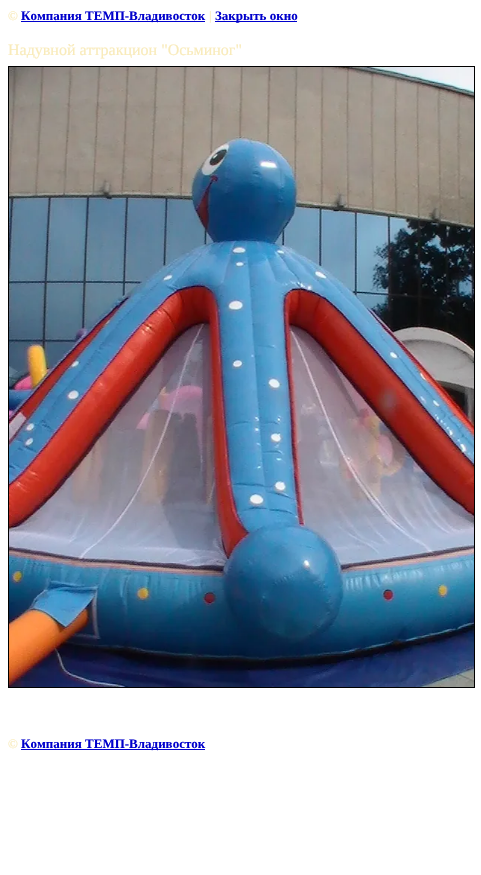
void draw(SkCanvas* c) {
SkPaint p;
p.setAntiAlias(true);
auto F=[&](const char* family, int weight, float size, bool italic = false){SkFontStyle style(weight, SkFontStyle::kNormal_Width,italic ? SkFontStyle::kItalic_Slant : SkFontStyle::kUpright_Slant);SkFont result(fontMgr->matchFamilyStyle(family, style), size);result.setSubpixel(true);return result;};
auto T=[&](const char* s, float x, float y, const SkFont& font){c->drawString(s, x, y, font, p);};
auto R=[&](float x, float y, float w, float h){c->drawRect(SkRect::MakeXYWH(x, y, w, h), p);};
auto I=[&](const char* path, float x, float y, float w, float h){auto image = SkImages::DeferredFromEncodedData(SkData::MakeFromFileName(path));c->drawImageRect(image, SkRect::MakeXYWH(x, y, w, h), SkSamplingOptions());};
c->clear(0xffffffff);
auto f1 = F("Liberation Serif",400,13);
p.setColor(0xfff9ebba);
T("©",8,20,f1);
p.setColor(0xff0000cc);
R(21,21,184,1);
auto f2 = F("Liberation Serif",700,13);
T("Компания ТЕМП-Владивосток",21,20,f2);
p.setColor(0xfff9ebba);
T("|",209,20,f1);
p.setColor(0xff0000cc);
R(215,21,82,1);
T("Закрыть окно",215,20,f2);
auto f3 = F("Liberation Serif",400,16);
p.setColor(0xfff9ebba);
T("Надувной аттракцион \"Осьминог\"",8,55,f3);
p.setStroke(true);
p.setStrokeWidth(1);
p.setColor(0xff000000);
c->drawRect(SkRect::MakeXYWH(8.5,66.5,466,621),p);
I("1.png",9,67,465,620);
p.setStroke(false);
p.setColor(0xfff9ebba);
T("©",8,748,f1);
p.setColor(0xff0000cc);
R(21,749,184,1);
T("Компания ТЕМП-Владивосток",21,748,f2);
}
